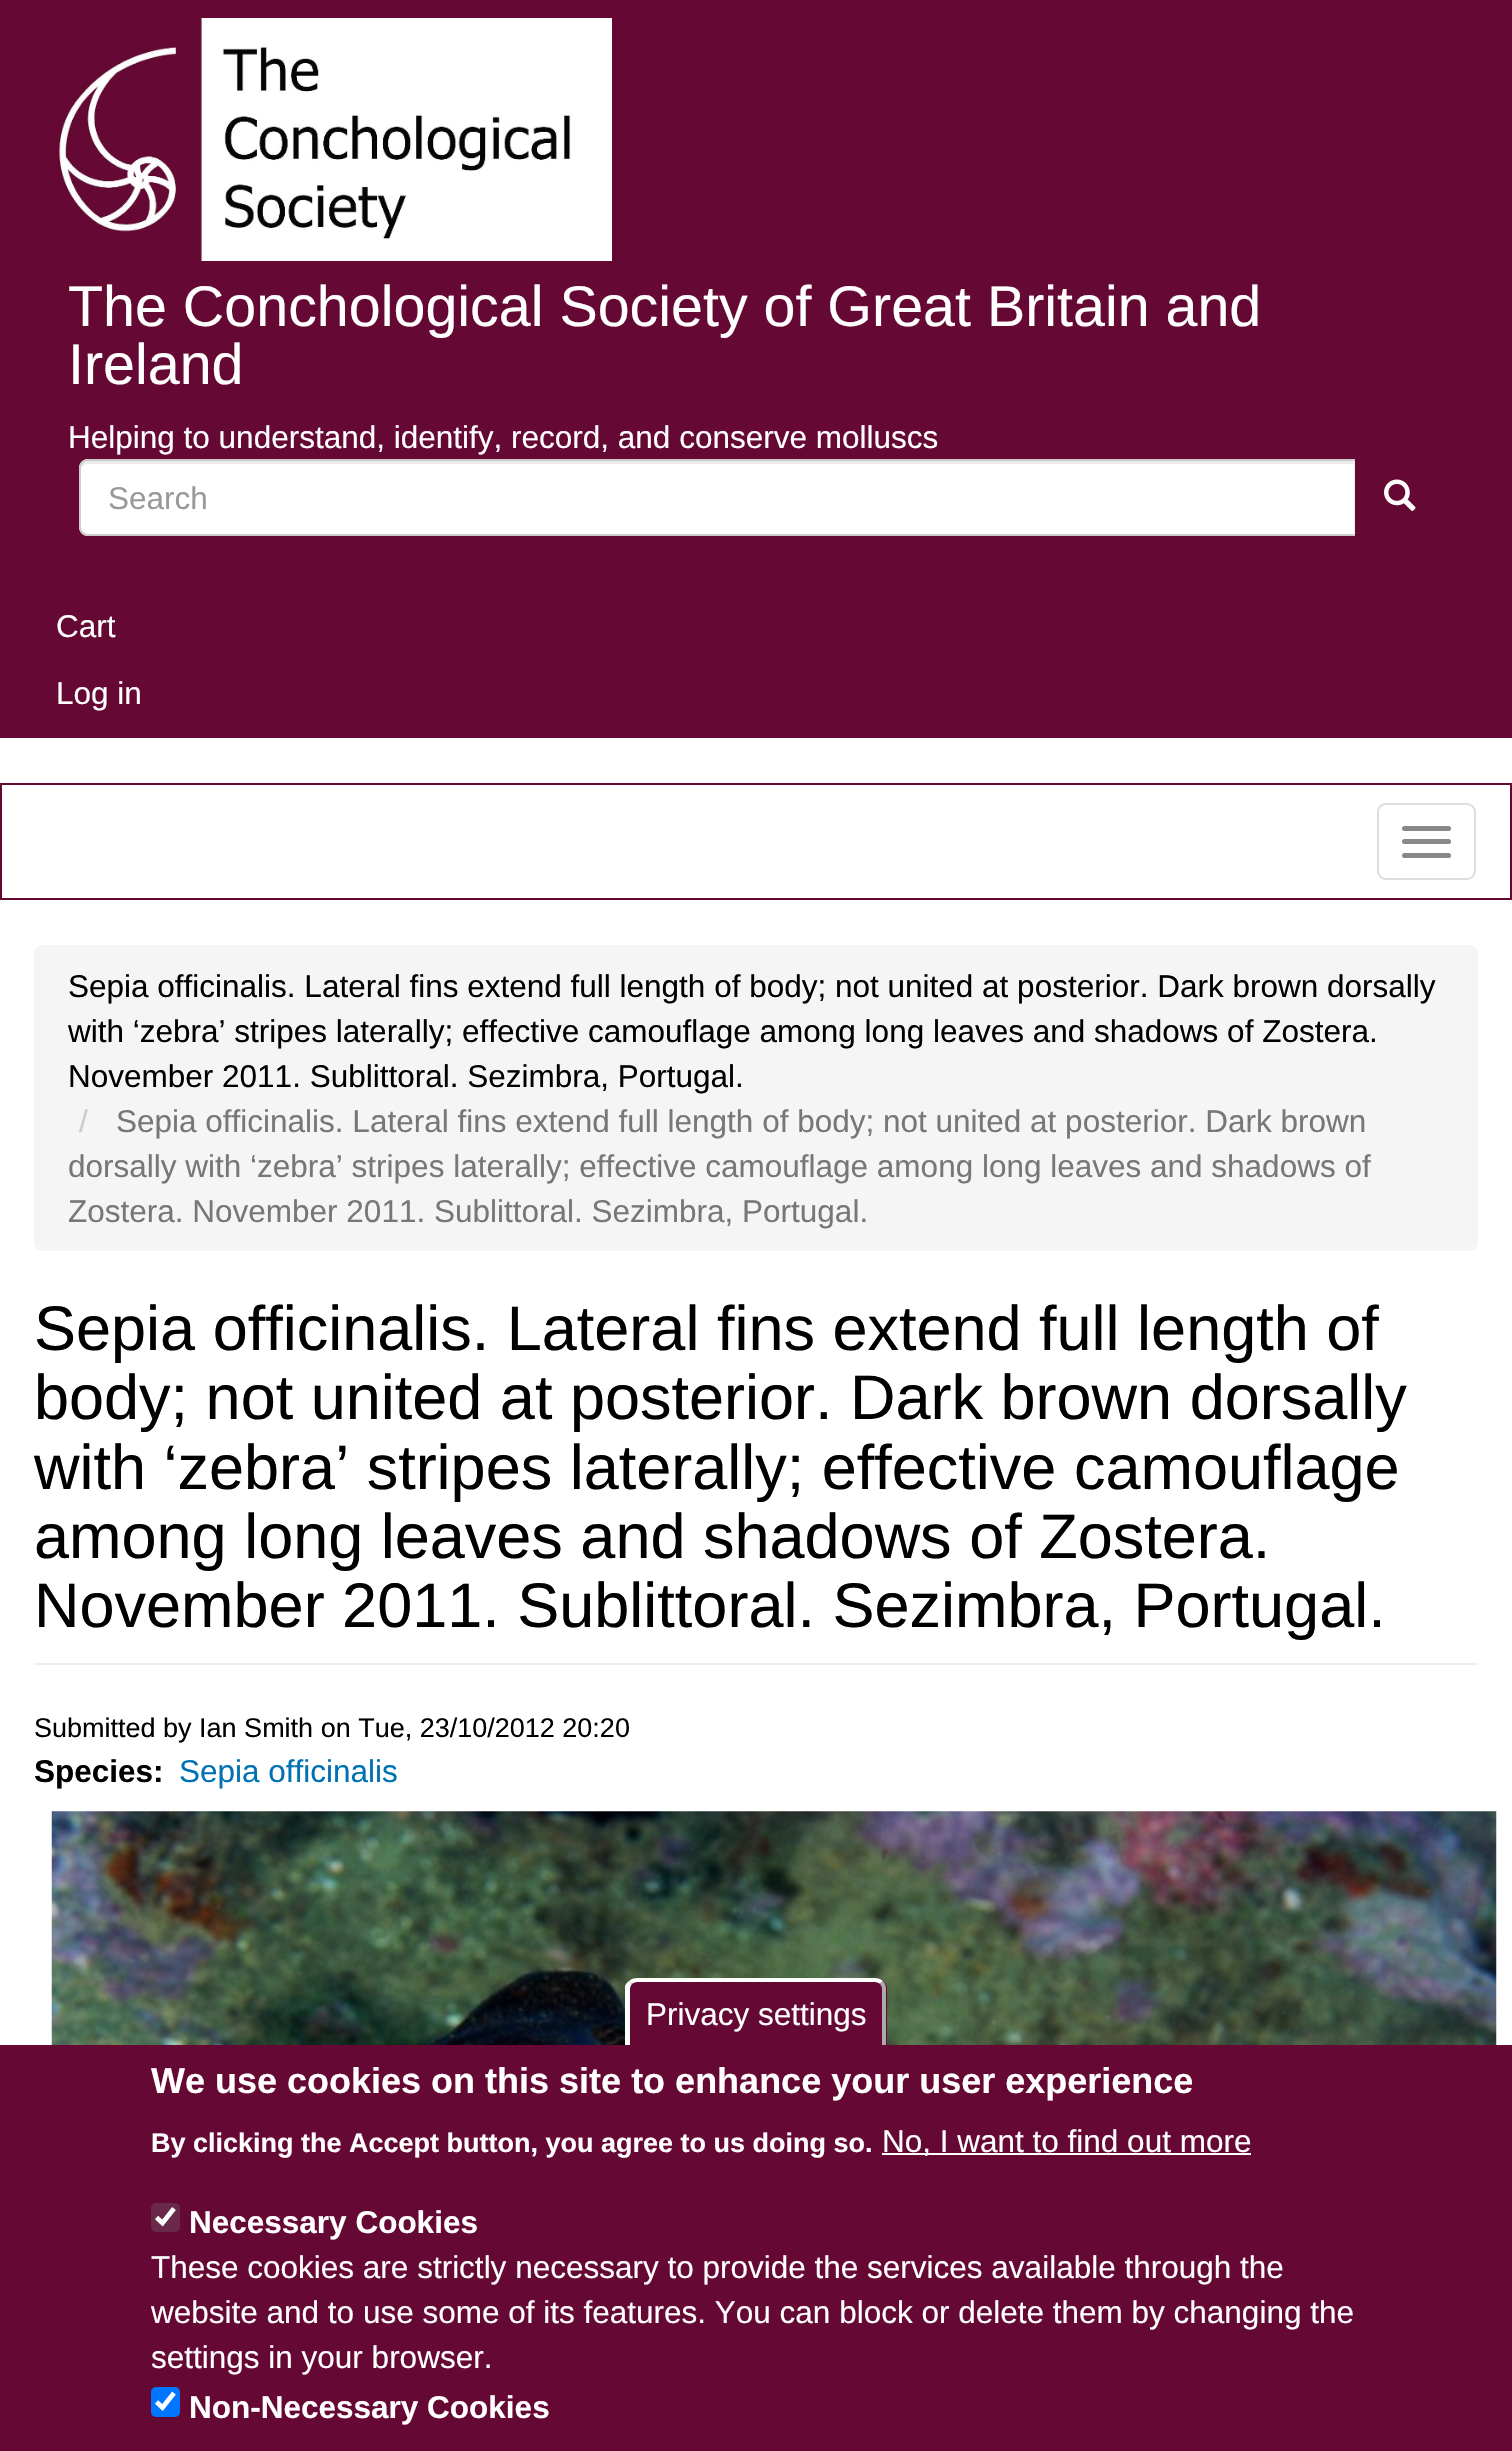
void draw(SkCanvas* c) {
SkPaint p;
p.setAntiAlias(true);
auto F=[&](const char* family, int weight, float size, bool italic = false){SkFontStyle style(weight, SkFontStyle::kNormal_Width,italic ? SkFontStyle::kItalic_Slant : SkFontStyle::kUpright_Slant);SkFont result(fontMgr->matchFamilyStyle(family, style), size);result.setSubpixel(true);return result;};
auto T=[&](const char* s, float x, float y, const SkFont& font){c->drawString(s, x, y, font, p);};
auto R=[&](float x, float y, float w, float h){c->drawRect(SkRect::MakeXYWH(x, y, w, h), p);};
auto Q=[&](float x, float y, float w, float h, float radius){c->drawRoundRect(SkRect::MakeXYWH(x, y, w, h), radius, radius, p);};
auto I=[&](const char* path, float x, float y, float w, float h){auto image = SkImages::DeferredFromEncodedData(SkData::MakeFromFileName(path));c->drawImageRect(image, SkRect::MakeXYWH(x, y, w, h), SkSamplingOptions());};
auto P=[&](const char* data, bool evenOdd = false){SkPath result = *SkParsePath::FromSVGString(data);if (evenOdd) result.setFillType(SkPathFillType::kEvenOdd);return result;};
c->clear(0xffffffff);
p.setColor(0xff650834);
R(0,0,1512,738);
I("1.png",54,18,558,243);
auto f1 = F("Liberation Sans",400,57.4);
p.setColor(0xffffffff);
T("The Conchological Society of Great Britain and",68,326,f1);
T("Ireland",68,384,f1);
auto f2 = F("Liberation Sans",400,31.5);
T("Helping to understand, identify, record, and conserve molluscs",68,448,f2);
c->drawPath(P("M88 459h1269v77h-1269c-5 0-9-4-9-9v-59c0-5 4-9 9-9z"),p);
p.setColor(0xffececec);
c->drawPath(P("M88 464h1266v69h1v-72h-1267c-4 0-7 3-7 7v2c0-3 3-6 7-6z"),p);
p.setStroke(true);
p.setStrokeWidth(2);
p.setColor(0xffcccccc);
c->drawPath(P("M88 460h1268v75h-1268c-4.5 0-8-3.5-8-8v-59c0-4.5 3.5-8 8-8z"),p);
p.setStroke(false);
p.setColor(0xff999999);
T("Search",108,509,f2);
p.setColor(0xff650834);
c->drawPath(P("M1355 459h81c5 0 9 4 9 9v59c0 5-4 9-9 9h-81z"),p);
I("2.png",1384,479,32,32);
p.setColor(0xffffffff);
T("Cart",56,637,f2);
T("Log in",56,704,f2);
p.setStroke(true);
p.setColor(0xff650834);
c->drawRect(SkRect::MakeXYWH(1,784,1510,115),p);
p.setColor(0xffdddddd);
c->drawRoundRect(SkRect::MakeXYWH(1378,804,97,75),8,8,p);
p.setStroke(false);
p.setColor(0xff888888);
Q(1402,826,49,5,2.5);
Q(1402,839,49,5,2.5);
Q(1402,853,49,5,2.5);
p.setColor(0xfff5f5f5);
Q(34,945,1444,306,9);
p.setColor(0xff000000);
T("Sepia officinalis. Lateral fins extend full length of body; not united at posterior. Dark brown dorsally",68,997,f2);
T("with ‘zebra’ stripes laterally; effective camouflage among long leaves and shadows of Zostera.",68,1042,f2);
T("November 2011. Sublittoral. Sezimbra, Portugal.",68,1087,f2);
p.setColor(0xffcccccc);
T("/",79,1132,f2);
p.setColor(0xff777777);
T("Sepia officinalis. Lateral fins extend full length of body; not united at posterior. Dark brown",116,1132,f2);
T("dorsally with ‘zebra’ stripes laterally; effective camouflage among long leaves and shadows of",68,1177,f2);
T("Zostera. November 2011. Sublittoral. Sezimbra, Portugal.",68,1222,f2);
p.setColor(0xffeeeeee);
R(34,1663,1444,2);
auto f3 = F("Liberation Sans",400,63);
p.setColor(0xff000000);
T("Sepia officinalis. Lateral fins extend full length of",34,1350,f3);
T("body; not united at posterior. Dark brown dorsally",34,1419,f3);
T("with ‘zebra’ stripes laterally; effective camouflage",34,1489,f3);
T("among long leaves and shadows of Zostera.",34,1558,f3);
T("November 2011. Sublittoral. Sezimbra, Portugal.",34,1627,f3);
auto f4 = F("Liberation Sans",400,27);
T("Submitted by Ian Smith on Tue, 23/10/2012 20:20",34,1737,f4);
auto f5 = F("Liberation Sans",700,31.5);
T("Species:",34,1782,f5);
p.setColor(0xff0071b3);
T("Sepia officinalis",179,1782,f2);
I("3.png",51,1811,1446,234);
p.setColor(0xff650834);
R(0,2045,1512,406);
c->drawPath(P("M637 1978h239c6 0 11 5 11 11v56h-261v-56c0-6 5-11 11-11z"),p);
p.setColor(0xffffffff);
c->drawPath(P("M637 1978h238c3 0 6 1 8 3l-3 3c-1-1-3-2-5-2h-238c-2 0-4 1-5 2l-3-3c2-2 5-3 8-3z"),p);
p.setColor(0xffaaaaaa);
c->drawPath(P("M880 1984c1 1 2 3 2 5v56h4v-56c0-3-1-6-3-8z"),p);
p.setColor(0xffffffff);
c->drawPath(P("M629 1981l3 3c-1 1-2 3-2 5v56h-5v-59c1-2 2-4 4-5z"),p);
T("Privacy settings",646,2025,f2);
auto f6 = F("Liberation Sans",700,36);
T("We use cookies on this site to enhance your user experience",151,2093,f6);
auto f7 = F("Liberation Sans",700,27);
T("By clicking the Accept button, you agree to us doing so.",151,2152,f7);
R(882,2153,369,2);
T("No, I want to find out more",882,2152,f2);
p.setColor(0xff6a2948);
Q(151,2203,29,29,5);
p.setStroke(true);
p.setStrokeWidth(4.7);
p.setColor(0xffffffff);
c->drawPath(P("M156.5 2217.5l6 5.5l11.5-14.5"),p);
p.setStroke(false);
T("Necessary Cookies",189,2233,f5);
T("These cookies are strictly necessary to provide the services available through the",151,2278,f2);
T("website and to use some of its features. You can block or delete them by changing the",151,2323,f2);
T("settings in your browser.",151,2368,f2);
p.setColor(0xff0075ff);
Q(151,2387,29,30,5);
p.setStroke(true);
p.setColor(0xffffffff);
c->drawPath(P("M156.5 2402l6 5.5l11.5-14.5"),p);
p.setStroke(false);
T("Non-Necessary Cookies",189,2418,f5);
}
